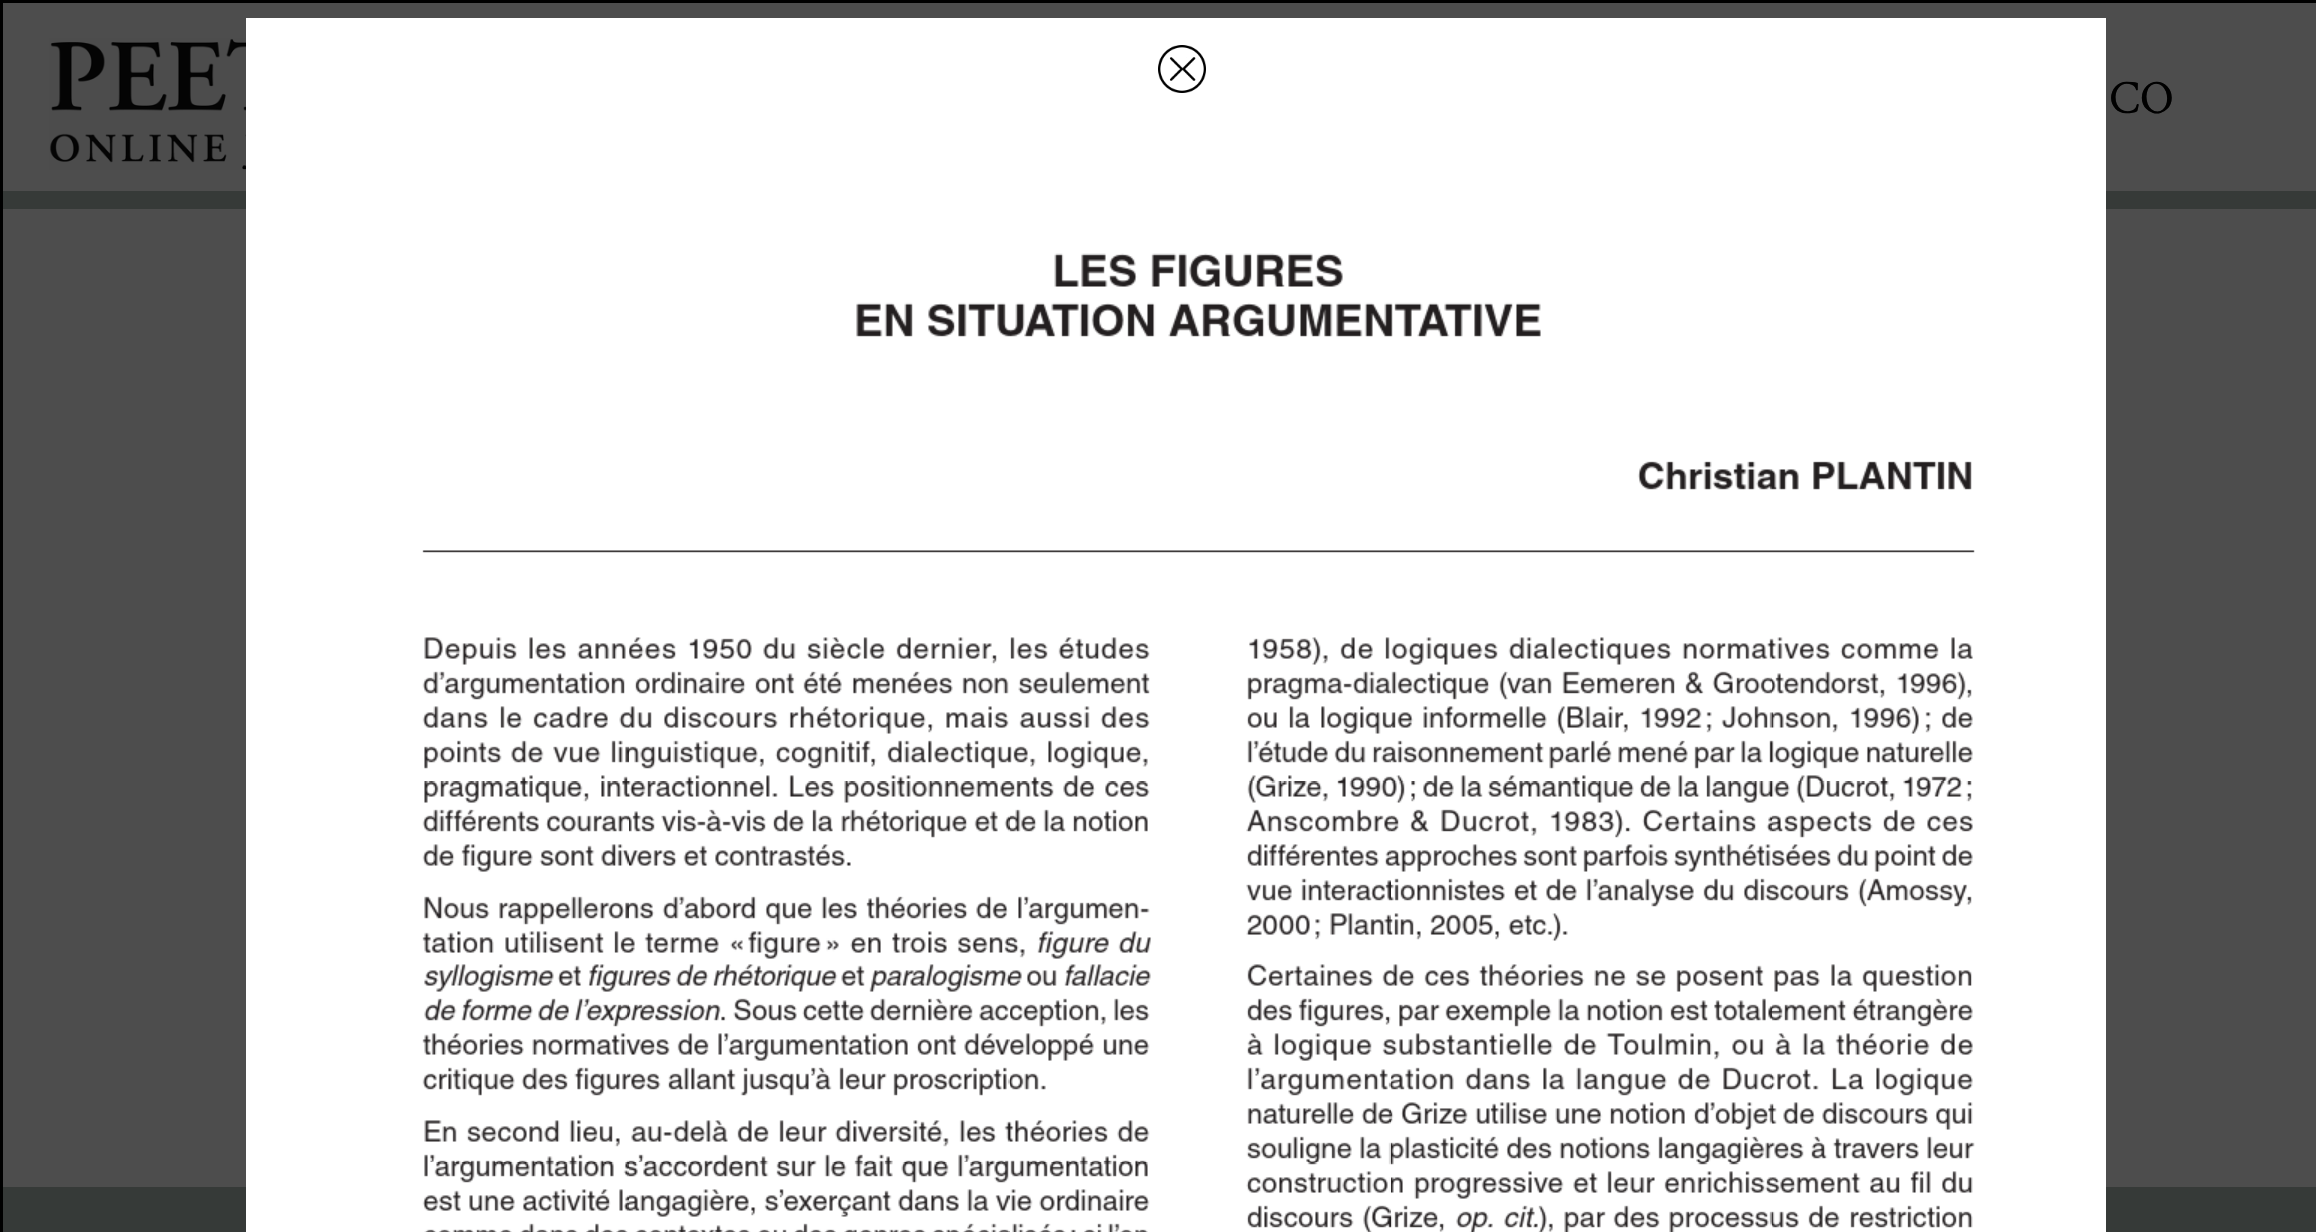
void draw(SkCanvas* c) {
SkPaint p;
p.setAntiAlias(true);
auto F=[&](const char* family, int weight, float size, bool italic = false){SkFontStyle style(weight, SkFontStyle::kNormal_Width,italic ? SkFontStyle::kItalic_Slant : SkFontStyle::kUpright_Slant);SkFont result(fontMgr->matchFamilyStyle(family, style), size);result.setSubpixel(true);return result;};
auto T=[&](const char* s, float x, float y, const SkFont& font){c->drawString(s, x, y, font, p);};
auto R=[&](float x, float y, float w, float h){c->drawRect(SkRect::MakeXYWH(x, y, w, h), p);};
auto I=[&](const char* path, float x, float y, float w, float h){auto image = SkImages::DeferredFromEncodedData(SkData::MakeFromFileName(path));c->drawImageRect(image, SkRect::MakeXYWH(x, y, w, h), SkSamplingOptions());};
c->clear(0xff4d4d4d);
I("3.png",49,38,197,132);
p.setColor(0xff363a38);
R(3,191,2313,18);
R(3,1187,2313,45);
p.setStroke(true);
p.setStrokeWidth(3);
p.setColor(0xff000000);
c->drawRect(SkRect::MakeXYWH(1.5,1.5,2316,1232),p);
I("1.png",246,18,1860,1214);
I("2.png",1158,45,48,48);
auto f1 = F("Crimson Text",400,48);
p.setStroke(false);
T("CO",2109,113,f1);
}
